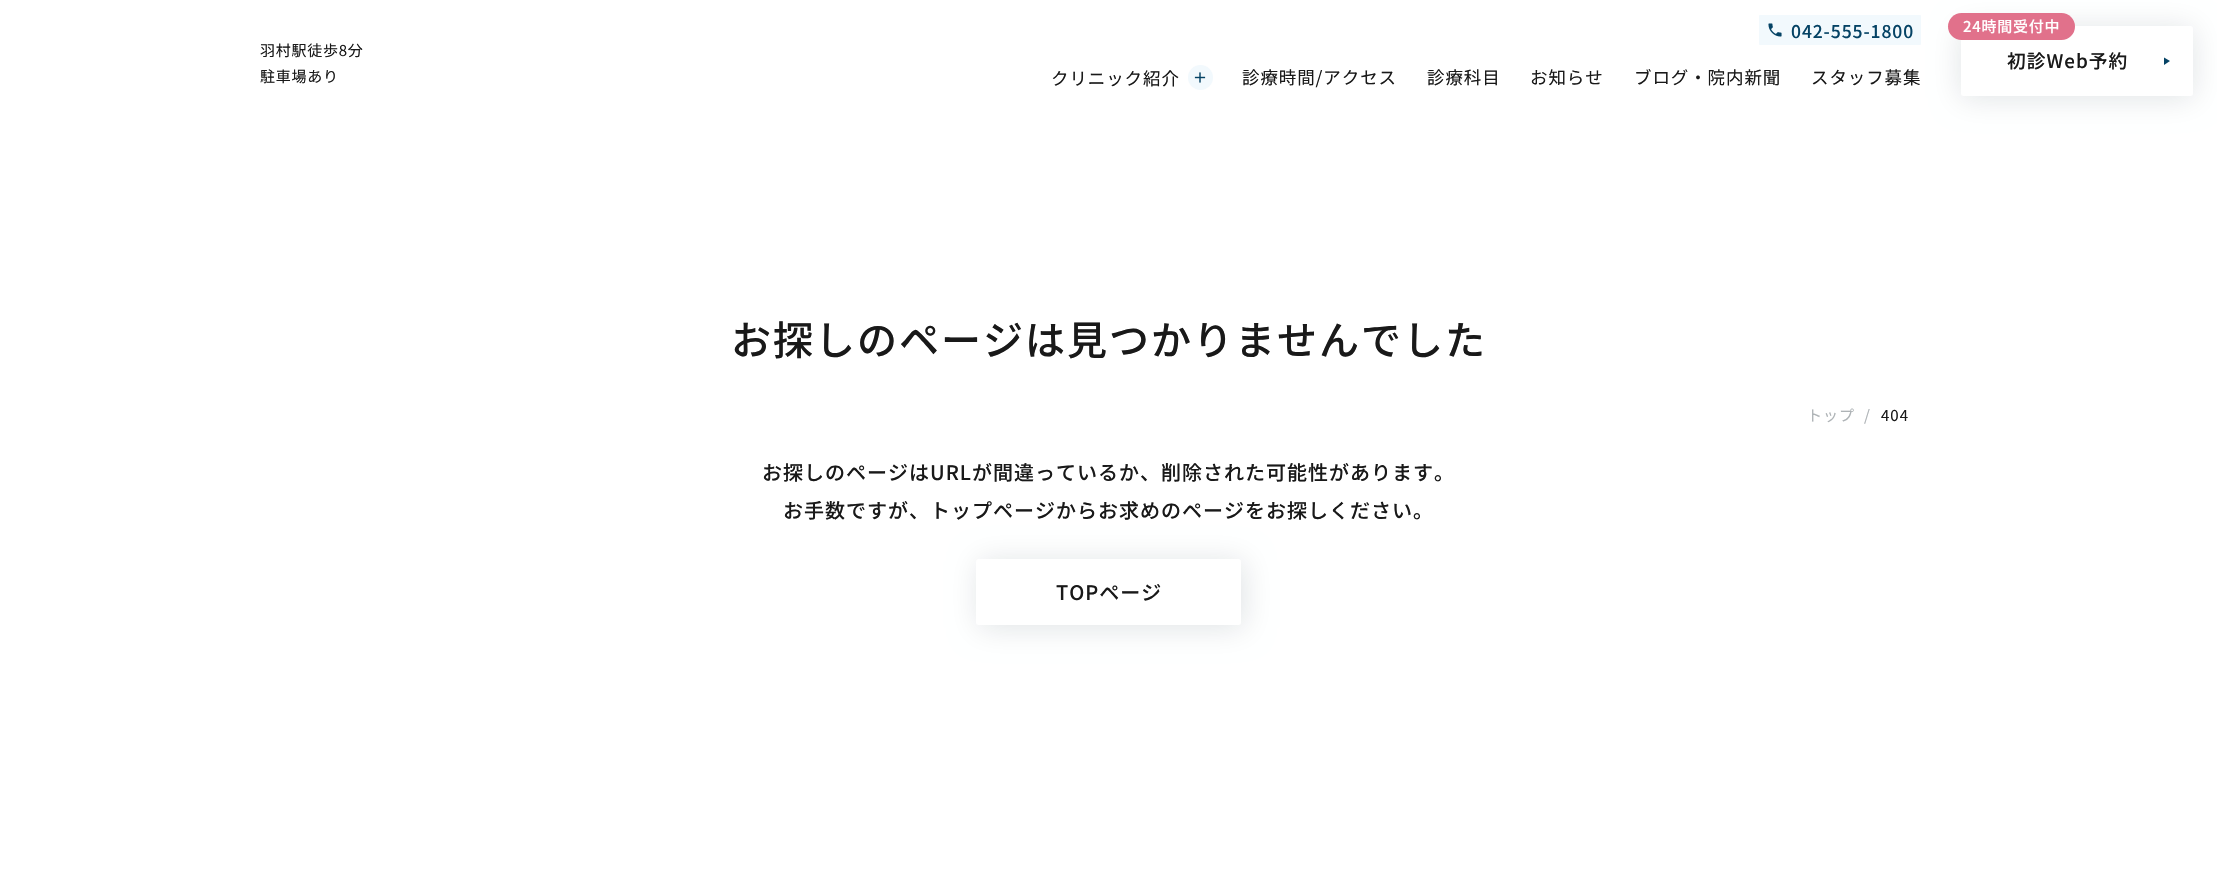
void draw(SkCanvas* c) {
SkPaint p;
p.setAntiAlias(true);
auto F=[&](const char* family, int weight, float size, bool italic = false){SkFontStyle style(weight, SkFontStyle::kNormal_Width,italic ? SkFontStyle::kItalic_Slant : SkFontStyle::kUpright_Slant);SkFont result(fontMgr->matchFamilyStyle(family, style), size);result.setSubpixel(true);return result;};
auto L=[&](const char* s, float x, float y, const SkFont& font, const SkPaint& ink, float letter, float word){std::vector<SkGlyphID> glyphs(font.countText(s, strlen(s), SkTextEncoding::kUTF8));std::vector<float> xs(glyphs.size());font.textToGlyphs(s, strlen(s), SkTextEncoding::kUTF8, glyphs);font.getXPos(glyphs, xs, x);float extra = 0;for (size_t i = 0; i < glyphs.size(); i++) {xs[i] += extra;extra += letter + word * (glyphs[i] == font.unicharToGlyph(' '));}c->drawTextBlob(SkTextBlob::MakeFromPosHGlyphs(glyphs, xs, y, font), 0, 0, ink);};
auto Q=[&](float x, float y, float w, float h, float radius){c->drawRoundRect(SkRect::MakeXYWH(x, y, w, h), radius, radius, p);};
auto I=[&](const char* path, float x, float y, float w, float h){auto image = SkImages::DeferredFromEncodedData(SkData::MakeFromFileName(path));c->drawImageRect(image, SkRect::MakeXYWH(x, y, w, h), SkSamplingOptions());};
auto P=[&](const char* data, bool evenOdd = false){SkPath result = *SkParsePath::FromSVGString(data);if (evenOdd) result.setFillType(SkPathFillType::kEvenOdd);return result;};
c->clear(0xffffffff);
auto f1 = F("Noto Sans JP",400,15);
p.setColor(0xff191919);
L("羽村駅徒歩8分",260,56,f1,p,.75,0);
L("駐車場あり",260,82,f1,p,.75,0);
p.setColor(0xfff2f9fd);
Q(1759,15,162,30,1);
I("1.png",1768,23,14,14);
auto f2 = F("Noto Sans JP",500,17.5);
p.setColor(0xff054365);
L("042-555-1800",1791,38,f2,p,.9,0);
auto f3 = F("Noto Sans JP",400,17.5);
p.setColor(0xff191919);
L("クリニック紹介",1051,85,f3,p,.9,0);
p.setColor(0xfff2f9fd);
c->drawCircle(1200.5,77.5,12.5,p);
I("2.png",1194,72,12,11);
p.setColor(0xff191919);
L("診療時間/アクセス",1242,84,f3,p,.9,0);
L("診療科目",1427,84,f3,p,.9,0);
L("お知らせ",1530,84,f3,p,.9,0);
L("ブログ・院内新聞",1634,84,f3,p,.9,0);
L("スタッフ募集",1811,84,f3,p,.9,0);
p.setColor(0x1f001828);
p.setMaskFilter(SkMaskFilter::MakeBlur(kNormal_SkBlurStyle, 15));
c->drawRoundRect(SkRect::MakeXYWH(1961,28,232,70),2.5,2.5,p);
p.setMaskFilter(nullptr);
p.setColor(0xffffffff);
Q(1961,26,232,70,2.5);
p.setColor(0xffe1718b);
Q(1948,13,127,27,13.5);
auto f4 = F("Noto Sans JP",500,15);
p.setColor(0xffffffff);
L("24時間受付中",1963,32,f4,p,.75,0);
auto f5 = F("Noto Sans JP",500,18.75);
p.setColor(0xff191919);
L("初診Web予約",2007,68,f5,p,1,0);
p.setColor(0xff054365);
c->drawPath(P("M2164 57.5l6 3.5l-6 4z"),p);
auto f6 = F("Noto Sans JP",500,40);
p.setColor(0xff191919);
L("お探しのページは見つかりませんでした",731,355,f6,p,2,0);
p.setColor(0xffaeb3b6);
L("トップ",1807,421,f1,p,1,0);
L("/",1864,421,f1,p,1,0);
p.setColor(0xff191919);
L("404",1881,421,f1,p,1,0);
auto f7 = F("Noto Sans JP",500,20);
L("お探しのページはURLが間違っているか、削除された可能性があります。",762,480,f7,p,1,0);
L("お手数ですが、トップページからお求めのページをお探しください。",783,518,f7,p,1,0);
p.setColor(0x1f001828);
p.setMaskFilter(SkMaskFilter::MakeBlur(kNormal_SkBlurStyle, 15));
c->drawRoundRect(SkRect::MakeXYWH(979,561,265,67),2.5,2.5,p);
p.setMaskFilter(nullptr);
p.setColor(0xffffffff);
Q(976,559,265,66,2.5);
p.setColor(0xff191919);
L("TOPページ",1056,600,f7,p,1,0);
}
